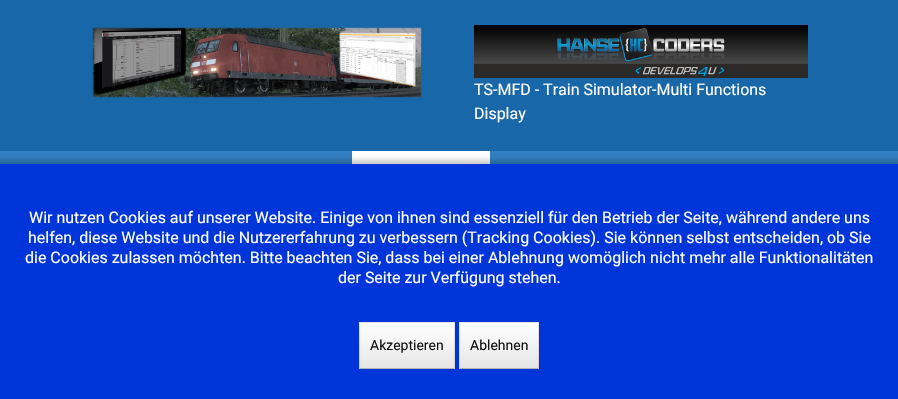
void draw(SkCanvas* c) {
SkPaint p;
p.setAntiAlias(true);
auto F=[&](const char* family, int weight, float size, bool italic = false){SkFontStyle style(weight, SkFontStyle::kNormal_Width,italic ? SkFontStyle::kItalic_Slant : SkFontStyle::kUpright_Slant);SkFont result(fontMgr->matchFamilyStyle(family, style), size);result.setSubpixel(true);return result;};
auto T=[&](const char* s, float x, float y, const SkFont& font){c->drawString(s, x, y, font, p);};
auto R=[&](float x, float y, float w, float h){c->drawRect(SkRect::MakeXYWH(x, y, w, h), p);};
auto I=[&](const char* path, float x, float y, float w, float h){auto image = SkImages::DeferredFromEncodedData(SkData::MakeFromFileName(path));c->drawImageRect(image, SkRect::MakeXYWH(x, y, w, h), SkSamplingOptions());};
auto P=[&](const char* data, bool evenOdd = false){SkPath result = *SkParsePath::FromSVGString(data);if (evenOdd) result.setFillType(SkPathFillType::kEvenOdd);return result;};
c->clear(0xff3180c2);
p.setColor(0xff1867a9);
R(0,0,898,151);
I("1.png",92,27,330,71);
I("2.png",474,25,334,53);
auto f1 = F("Roboto",400,16);
p.setColor(0xffffffff);
T("TS-MFD - Train Simulator-Multi Functions",474,95,f1);
T("Display",474,119,f1);
R(352,151,138,13);
p.setColor(0x36000000);
p.setMaskFilter(SkMaskFilter::MakeBlur(kNormal_SkBlurStyle, 2.5));
c->drawRect(SkRect::MakeXYWH(-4,160,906,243),p);
p.setMaskFilter(nullptr);
p.setColor(0xff0036d9);
R(0,164,898,235);
p.setColor(0xffffffff);
T("Wir nutzen Cookies auf unserer Website. Einige von ihnen sind essenziell für den Betrieb der Seite, während andere uns",29,223,f1);
T("helfen, diese Website und die Nutzererfahrung zu verbessern (Tracking Cookies). Sie können selbst entscheiden, ob Sie",28,243,f1);
T("die Cookies zulassen möchten. Bitte beachten Sie, dass bei einer Ablehnung womöglich nicht mehr alle Funktionalitäten",25,263,f1);
T("der Seite zur Verfügung stehen.",338,283,f1);
p.setColor(0x0d000000);
p.setMaskFilter(SkMaskFilter::MakeBlur(kNormal_SkBlurStyle, 1));
c->drawRect(SkRect::MakeXYWH(359,323,96,47),p);
p.setMaskFilter(nullptr);
p.setColor(0xffffffff);
R(359,322,96,47);
{
const SkColor colors[] = {0xffffffff,0xffe6e6e6};
const float stops[] = {0,1};
const SkPoint ends[] = {{407,323}, {407,368}};
p.setShader(SkGradientShader::MakeLinear(ends, colors, stops, 2, SkTileMode::kClamp));
p.setAlpha(255);
}
R(359,328,96,40);
p.setShader(nullptr);
p.setColor(0xffe6e6e6);
c->drawPath(P("M359 322h96l-1 1h-94z"),p);
p.setColor(0x1a000000);
c->drawPath(P("M455 322v47l-1-1v-45z"),p);
p.setColor(0xffb3b3b3);
c->drawPath(P("M455 369h-96l1-1h94z"),p);
p.setColor(0x1a000000);
c->drawPath(P("M359 369v-47l1 1v45z"),p);
auto f2 = F("Roboto",400,14);
p.setColor(0xff111111);
T("Akzeptieren",370,350,f2);
p.setColor(0x0d000000);
p.setMaskFilter(SkMaskFilter::MakeBlur(kNormal_SkBlurStyle, 1));
c->drawRect(SkRect::MakeXYWH(459,323,80,47),p);
p.setMaskFilter(nullptr);
p.setColor(0xffffffff);
R(459,322,80,47);
{
const SkColor colors[] = {0xffffffff,0xffe6e6e6};
const float stops[] = {0,1};
const SkPoint ends[] = {{499,323}, {499,368}};
p.setShader(SkGradientShader::MakeLinear(ends, colors, stops, 2, SkTileMode::kClamp));
p.setAlpha(255);
}
R(459,328,80,40);
p.setShader(nullptr);
p.setColor(0xffe6e6e6);
c->drawPath(P("M459 322h80l-1 1h-78z"),p);
p.setColor(0x1a000000);
c->drawPath(P("M539 322v47l-1-1v-45z"),p);
p.setColor(0xffb3b3b3);
c->drawPath(P("M539 369h-80l1-1h78z"),p);
p.setColor(0x1a000000);
c->drawPath(P("M459 369v-47l1 1v45z"),p);
p.setColor(0xff111111);
T("Ablehnen",470,350,f2);
}
